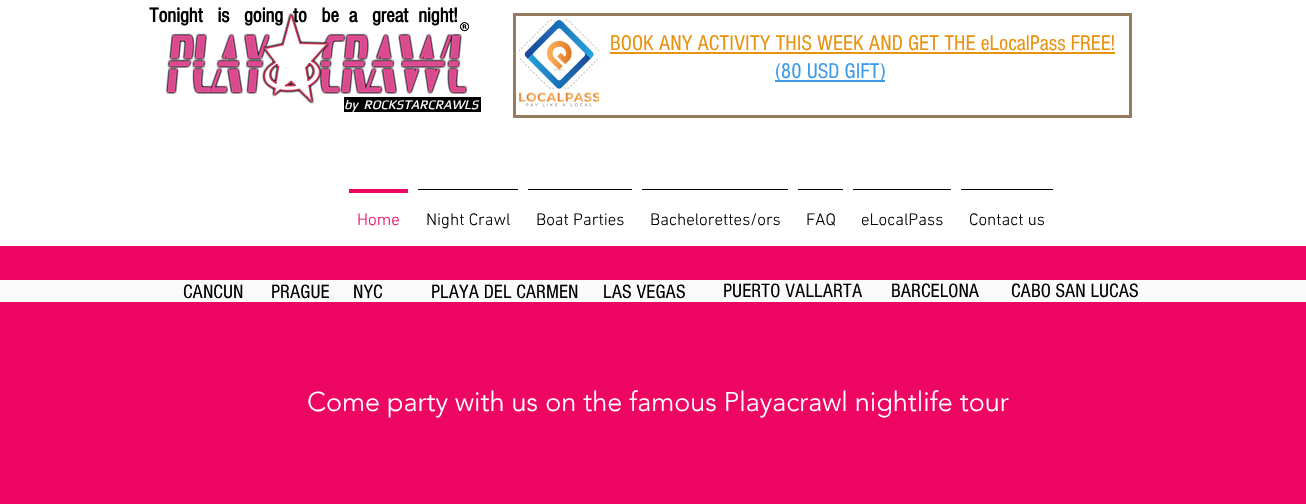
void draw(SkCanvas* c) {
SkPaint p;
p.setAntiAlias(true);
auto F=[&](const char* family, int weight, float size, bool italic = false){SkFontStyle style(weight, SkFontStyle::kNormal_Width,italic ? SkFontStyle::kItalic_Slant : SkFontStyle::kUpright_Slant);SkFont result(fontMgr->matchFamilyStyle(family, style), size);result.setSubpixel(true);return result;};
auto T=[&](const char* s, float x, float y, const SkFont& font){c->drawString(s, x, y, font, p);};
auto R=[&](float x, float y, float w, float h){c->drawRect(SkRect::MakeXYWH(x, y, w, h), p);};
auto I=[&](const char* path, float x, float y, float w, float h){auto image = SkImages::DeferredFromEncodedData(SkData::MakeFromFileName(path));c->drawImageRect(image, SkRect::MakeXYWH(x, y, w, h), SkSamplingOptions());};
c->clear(0xffffffff);
I("1.png",166,13,303,91);
auto f1 = F("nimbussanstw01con",700,21);
p.setColor(0xff000000);
T("Tonight   is   going  to   be  a   great  night!",149,22,f1);
p.setStroke(true);
p.setStrokeWidth(3);
p.setColor(0xff957b5f);
c->drawRect(SkRect::MakeXYWH(514.5,14.5,616,102),p);
I("2.png",519,19,80,88);
auto f2 = F("nimbussanstw01con",400,22);
p.setStroke(false);
p.setColor(0xffe89210);
T("BOOK ANY ACTIVITY THIS WEEK AND GET THE eLocalPass FREE!",610,50,f2);
R(610,52,505,2);
p.setColor(0xff3d9be9);
R(775,80,110,2);
T("(80 USD GIFT)",775,78,f2);
p.setColor(0xff000000);
R(344,97,137,15);
auto f3 = F("Play",400,13,true);
p.setColor(0xffffffff);
T("by  ROCKSTARCRAWLS",344,109,f3);
p.setColor(0xffed0763);
R(349,189,59,4);
auto f4 = F("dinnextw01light",300,17);
T("Home",357,225,f4);
p.setColor(0xff000000);
R(418,189,100,1);
T("Night Crawl",426,225,f4);
R(528,189,104,1);
T("Boat Parties",536,225,f4);
R(642,189,146,1);
T("Bachelorettes/ors",650,225,f4);
R(798,189,45,1);
T("FAQ",806,225,f4);
R(853,189,98,1);
T("eLocalPass",861,225,f4);
R(961,189,92,1);
T("Contact us",969,225,f4);
p.setColor(0xffed0763);
R(0,246,1306,258);
p.setColor(0xfffafafa);
R(0,280,1306,22);
auto f5 = F("nimbussanstw01con",400,20);
p.setColor(0xff000000);
T("CANCUN",183,298,f5);
p.setColor(0xffffffff);
R(183,299,60,2);
p.setColor(0xff000000);
T("PRAGUE",271,298,f5);
p.setColor(0xffffffff);
R(271,299,59,2);
p.setColor(0xff000000);
T("NYC",353,298,f5);
p.setColor(0xffffffff);
R(353,299,30,2);
p.setColor(0xff000000);
T("PLAYA DEL CARMEN",431,298,f5);
p.setColor(0xffffffff);
R(431,299,147,2);
p.setColor(0xff000000);
T("LAS VEGAS",603,298,f5);
p.setColor(0xffffffff);
R(603,299,83,2);
p.setColor(0xff000000);
T("PUERTO VALLARTA",723,297,f5);
p.setColor(0xffffffff);
R(723,298,139,2);
p.setColor(0xff000000);
T("BARCELONA",891,297,f5);
p.setColor(0xffffffff);
R(891,298,88,2);
p.setColor(0xff000000);
T("CABO SAN LUCAS",1011,297,f5);
p.setColor(0xffffffff);
R(1011,298,128,2);
auto f6 = F("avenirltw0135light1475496",300,27);
T("Come party with us on the famous Playacrawl nightlife tour",307,411,f6);
}
